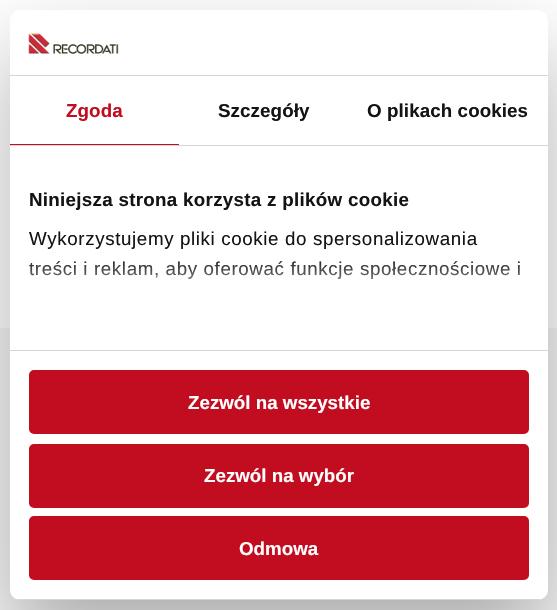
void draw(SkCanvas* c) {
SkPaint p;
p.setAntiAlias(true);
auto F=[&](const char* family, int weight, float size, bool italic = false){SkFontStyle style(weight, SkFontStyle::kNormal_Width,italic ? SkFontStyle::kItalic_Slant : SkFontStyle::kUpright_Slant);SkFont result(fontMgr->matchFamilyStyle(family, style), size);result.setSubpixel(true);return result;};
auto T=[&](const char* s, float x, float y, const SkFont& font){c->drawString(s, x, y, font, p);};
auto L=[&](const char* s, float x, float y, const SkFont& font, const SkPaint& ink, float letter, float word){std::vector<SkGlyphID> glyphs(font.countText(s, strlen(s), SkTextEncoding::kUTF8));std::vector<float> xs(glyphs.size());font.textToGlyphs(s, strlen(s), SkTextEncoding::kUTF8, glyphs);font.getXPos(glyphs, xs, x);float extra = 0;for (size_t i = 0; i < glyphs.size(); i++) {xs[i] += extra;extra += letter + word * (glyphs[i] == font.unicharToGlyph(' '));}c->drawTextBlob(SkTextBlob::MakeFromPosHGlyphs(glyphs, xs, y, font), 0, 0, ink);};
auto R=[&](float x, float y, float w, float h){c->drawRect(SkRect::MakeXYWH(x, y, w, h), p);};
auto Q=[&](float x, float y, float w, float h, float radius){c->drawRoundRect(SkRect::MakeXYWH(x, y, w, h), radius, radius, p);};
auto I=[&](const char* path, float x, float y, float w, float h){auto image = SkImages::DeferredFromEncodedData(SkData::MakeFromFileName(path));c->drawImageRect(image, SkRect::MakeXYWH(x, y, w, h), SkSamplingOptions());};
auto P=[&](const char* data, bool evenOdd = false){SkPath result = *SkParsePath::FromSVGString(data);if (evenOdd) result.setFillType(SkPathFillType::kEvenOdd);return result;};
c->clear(0xffffffff);
p.setColor(0xfff6f6f6);
R(0,328,557,282);
p.setColor(0x4d000000);
p.setMaskFilter(SkMaskFilter::MakeBlur(kNormal_SkBlurStyle, 42.5));
c->drawRoundRect(SkRect::MakeXYWH(10,50,538,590),10,10,p);
p.setMaskFilter(nullptr);
p.setColor(0xffffffff);
Q(10,10,538,590,10);
p.setColor(0xffd6d6d6);
R(10,75,538,1);
I("1.png",28,33,91,21);
R(10,145,538,1);
p.setColor(0xffc20d20);
R(10,144,169,1);
auto f1 = F("Liberation Sans",700,18.75);
L("Zgoda",66,117,f1,p,.1,0);
p.setColor(0xff141414);
L("Szczegóły",218,117,f1,p,.1,0);
L("O plikach cookies",367,117,f1,p,.1,0);
p.setColor(0xffd6d6d6);
R(10,350,538,1);
p.setColor(0xff141414);
L("Niniejsza strona korzysta z plików cookie",29,206,f1,p,.3,0);
auto f2 = F("Liberation Sans",400,18.75);
L("Wykorzystujemy pliki cookie do spersonalizowania",29,245,f2,p,.62,0);
L("treści i reklam, aby oferować funkcje społecznościowe i",29,275,f2,p,.62,0);
{
const SkColor colors[] = {0xffffffff,0xccffffff,0x00ffffff};
const float stops[] = {0,.5,1};
const SkPoint ends[] = {{271,350}, {271,256}};
p.setShader(SkGradientShader::MakeLinear(ends, colors, stops, 3, SkTileMode::kClamp));
p.setAlpha(255);
}
R(29,261,491,18);
c->save();
c->clipPath(P("M20 10h518c5.5 0 10 4.5 10 10v570c0 5.5-4.5 10-10 10h-518c-5.5 0-10-4.5-10-10v-570c0-5.5 4.5-10 10-10z"),true);
p.setShader(nullptr);
p.setColor(0xffd6d6d6);
R(10,599,538,1);
c->restore();
p.setColor(0xffc20d20);
c->drawRoundRect(SkRect::MakeXYWH(30.5,371.5,497,61),3.5,3.5,p);
p.setStroke(true);
p.setStrokeWidth(3);
c->drawRoundRect(SkRect::MakeXYWH(30.5,371.5,497,61),3.5,3.5,p);
p.setStroke(false);
p.setColor(0xffffffff);
T("Zezwól na wszystkie",188,409,f1);
p.setColor(0xffc20d20);
c->drawRoundRect(SkRect::MakeXYWH(30.5,445.5,497,61),3.5,3.5,p);
p.setStroke(true);
c->drawRoundRect(SkRect::MakeXYWH(30.5,445.5,497,61),3.5,3.5,p);
p.setStroke(false);
p.setColor(0xffffffff);
T("Zezwól na wybór",204,482,f1);
p.setColor(0xffc20d20);
c->drawRoundRect(SkRect::MakeXYWH(30.5,517.5,497,61),3.5,3.5,p);
p.setStroke(true);
c->drawRoundRect(SkRect::MakeXYWH(30.5,517.5,497,61),3.5,3.5,p);
p.setStroke(false);
p.setColor(0xffffffff);
T("Odmowa",239,555,f1);
}
